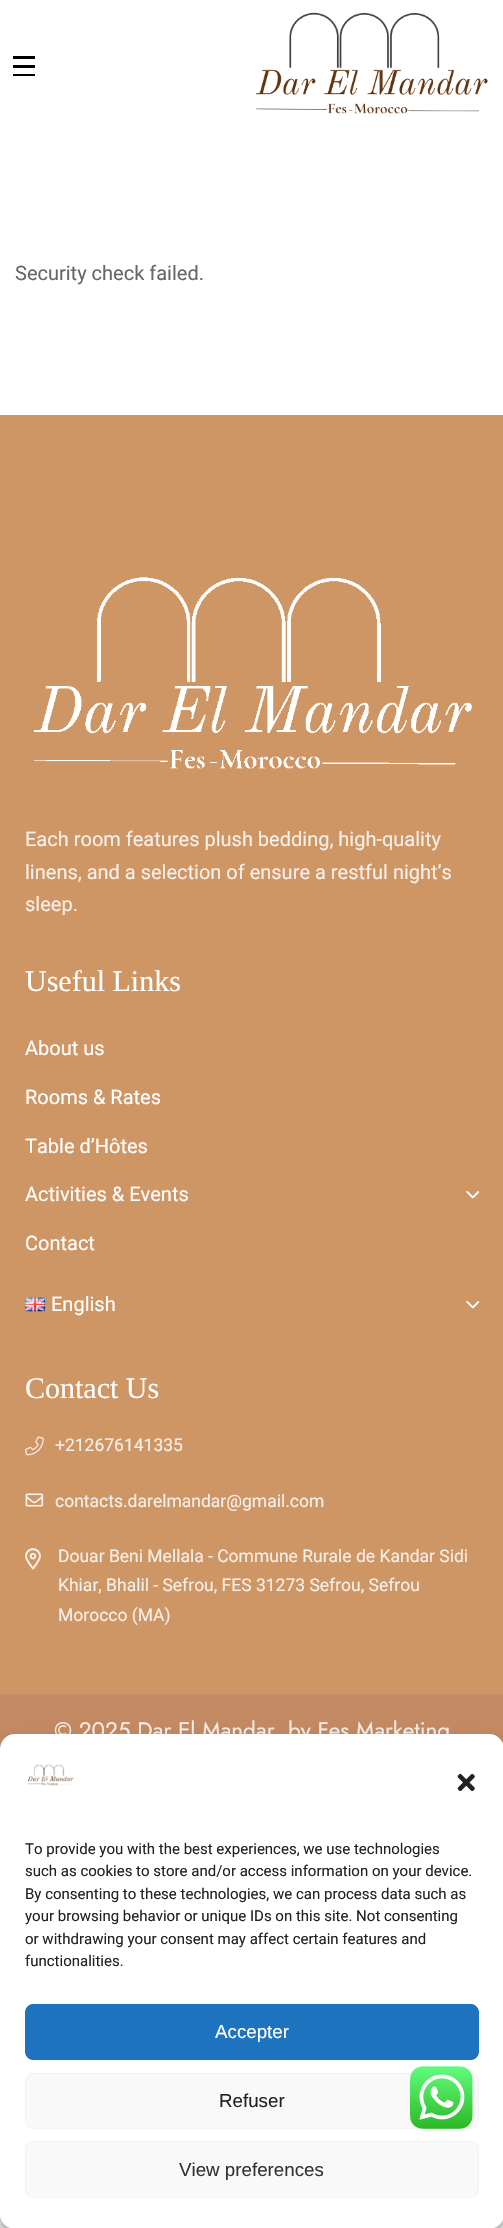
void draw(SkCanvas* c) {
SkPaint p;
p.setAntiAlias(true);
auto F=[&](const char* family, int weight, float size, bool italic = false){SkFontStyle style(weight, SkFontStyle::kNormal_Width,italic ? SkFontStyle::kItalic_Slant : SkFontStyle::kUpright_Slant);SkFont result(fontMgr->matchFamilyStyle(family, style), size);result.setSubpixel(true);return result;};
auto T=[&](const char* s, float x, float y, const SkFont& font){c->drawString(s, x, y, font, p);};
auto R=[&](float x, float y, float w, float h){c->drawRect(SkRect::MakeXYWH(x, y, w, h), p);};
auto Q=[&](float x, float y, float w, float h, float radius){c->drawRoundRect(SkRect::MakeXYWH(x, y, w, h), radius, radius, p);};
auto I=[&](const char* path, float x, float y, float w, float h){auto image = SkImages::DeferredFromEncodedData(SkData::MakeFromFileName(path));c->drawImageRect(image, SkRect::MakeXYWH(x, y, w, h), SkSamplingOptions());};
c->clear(0xffffffff);
p.setColor(0xff000000);
R(13,56,22,3);
R(13,65,22,3);
R(13,74,22,2);
I("1.png",256,12,232,102);
auto f1 = F("Roboto",400,20);
p.setColor(0xff65676b);
T("Security check failed.",15,280,f1);
p.setColor(0xffce9665);
R(0,415,503,1279);
I("2.png",34,577,438,192);
p.setColor(0xfff7efe9);
T("Each room features plush bedding, high-quality",25,846,f1);
T("linens, and a selection of ensure a restful night’s",25,879,f1);
T("sleep.",25,911,f1);
auto f2 = F("Liberation Serif",400,30);
p.setColor(0xffffffff);
T("Useful Links",25,991,f2);
T("About us",25,1055,f1);
T("Rooms & Rates",25,1104,f1);
T("Table d’Hôtes",25,1153,f1);
T("Activities & Events",25,1201,f1);
I("3.png",466,1191,13,8);
T("Contact",25,1250,f1);
I("4.png",25,1297,20,15);
T("English",51,1311,f1);
I("3.png",466,1301,13,8);
T("Contact Us",25,1398,f2);
I("5.png",25,1436,19,20);
auto f3 = F("Roboto",400,17.5);
p.setColor(0xfff7efe9);
T("+212676141335",55,1451,f3);
I("6.png",25,1493,19,14);
T("contacts.darelmandar@gmail.com",55,1507,f3);
I("7.png",25,1548,16,22);
T("Douar Beni Mellala - Commune Rurale de Kandar Sidi",58,1562,f3);
T("Khiar, Bhalil - Sefrou, FES 31273 Sefrou, Sefrou",58,1591,f3);
T("Morocco (MA)",58,1621,f3);
p.setColor(0xffc48a63);
R(0,1695,503,54);
p.setColor(0xffc8926e);
R(0,1694,503,1);
auto f4 = F("Jost",400,22.5);
p.setColor(0xfff7efe9);
T("© 2025 Dar El Mandar. by Fes Marketing",54,1738,f4);
p.setColor(0x3b000000);
p.setMaskFilter(SkMaskFilter::MakeBlur(kNormal_SkBlurStyle, 4));
c->drawRoundRect(SkRect::MakeXYWH(0,1741,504,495),15,15,p);
p.setMaskFilter(nullptr);
p.setColor(0x30000000);
p.setMaskFilter(SkMaskFilter::MakeBlur(kNormal_SkBlurStyle, 12.5));
c->drawRoundRect(SkRect::MakeXYWH(0,1746,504,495),15,15,p);
p.setMaskFilter(nullptr);
p.setColor(0xffffffff);
Q(0,1734,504,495,15);
I("8.png",27,1764,47,22);
I("9.png",457,1773,18,19);
auto f5 = F("Roboto",400,15);
p.setColor(0xff222222);
T("To provide you with the best experiences, we use technologies",25,1854,f5);
T("such as cookies to store and/or access information on your device.",25,1876,f5);
T("By consenting to these technologies, we can process data such as",25,1899,f5);
T("your browsing behavior or unique IDs on this site. Not consenting",25,1921,f5);
T("or withdrawing your consent may affect certain features and",25,1944,f5);
T("functionalities.",25,1966,f5);
p.setColor(0xff1e73be);
c->drawRoundRect(SkRect::MakeXYWH(25.5,2004.5,453,55),7.5,7.5,p);
p.setStroke(true);
p.setStrokeWidth(1);
c->drawRoundRect(SkRect::MakeXYWH(25.5,2004.5,453,55),7.5,7.5,p);
auto f6 = F("Liberation Sans",400,18.75);
p.setStroke(false);
p.setColor(0xffffffff);
T("Accepter",215,2038,f6);
p.setColor(0xfff9f9f9);
c->drawRoundRect(SkRect::MakeXYWH(25.5,2073.5,453,55),7.5,7.5,p);
p.setStroke(true);
p.setColor(0xfff2f2f2);
c->drawRoundRect(SkRect::MakeXYWH(25.5,2073.5,453,55),7.5,7.5,p);
p.setStroke(false);
p.setColor(0xff222222);
T("Refuser",219,2107,f6);
p.setColor(0xfff9f9f9);
c->drawRoundRect(SkRect::MakeXYWH(25.5,2141.5,453,56),7.5,7.5,p);
p.setStroke(true);
p.setColor(0xfff2f2f2);
c->drawRoundRect(SkRect::MakeXYWH(25.5,2141.5,453,56),7.5,7.5,p);
p.setStroke(false);
p.setColor(0xff333333);
T("View preferences",179,2176,f6);
I("10.png",410,2066,63,63);
}
